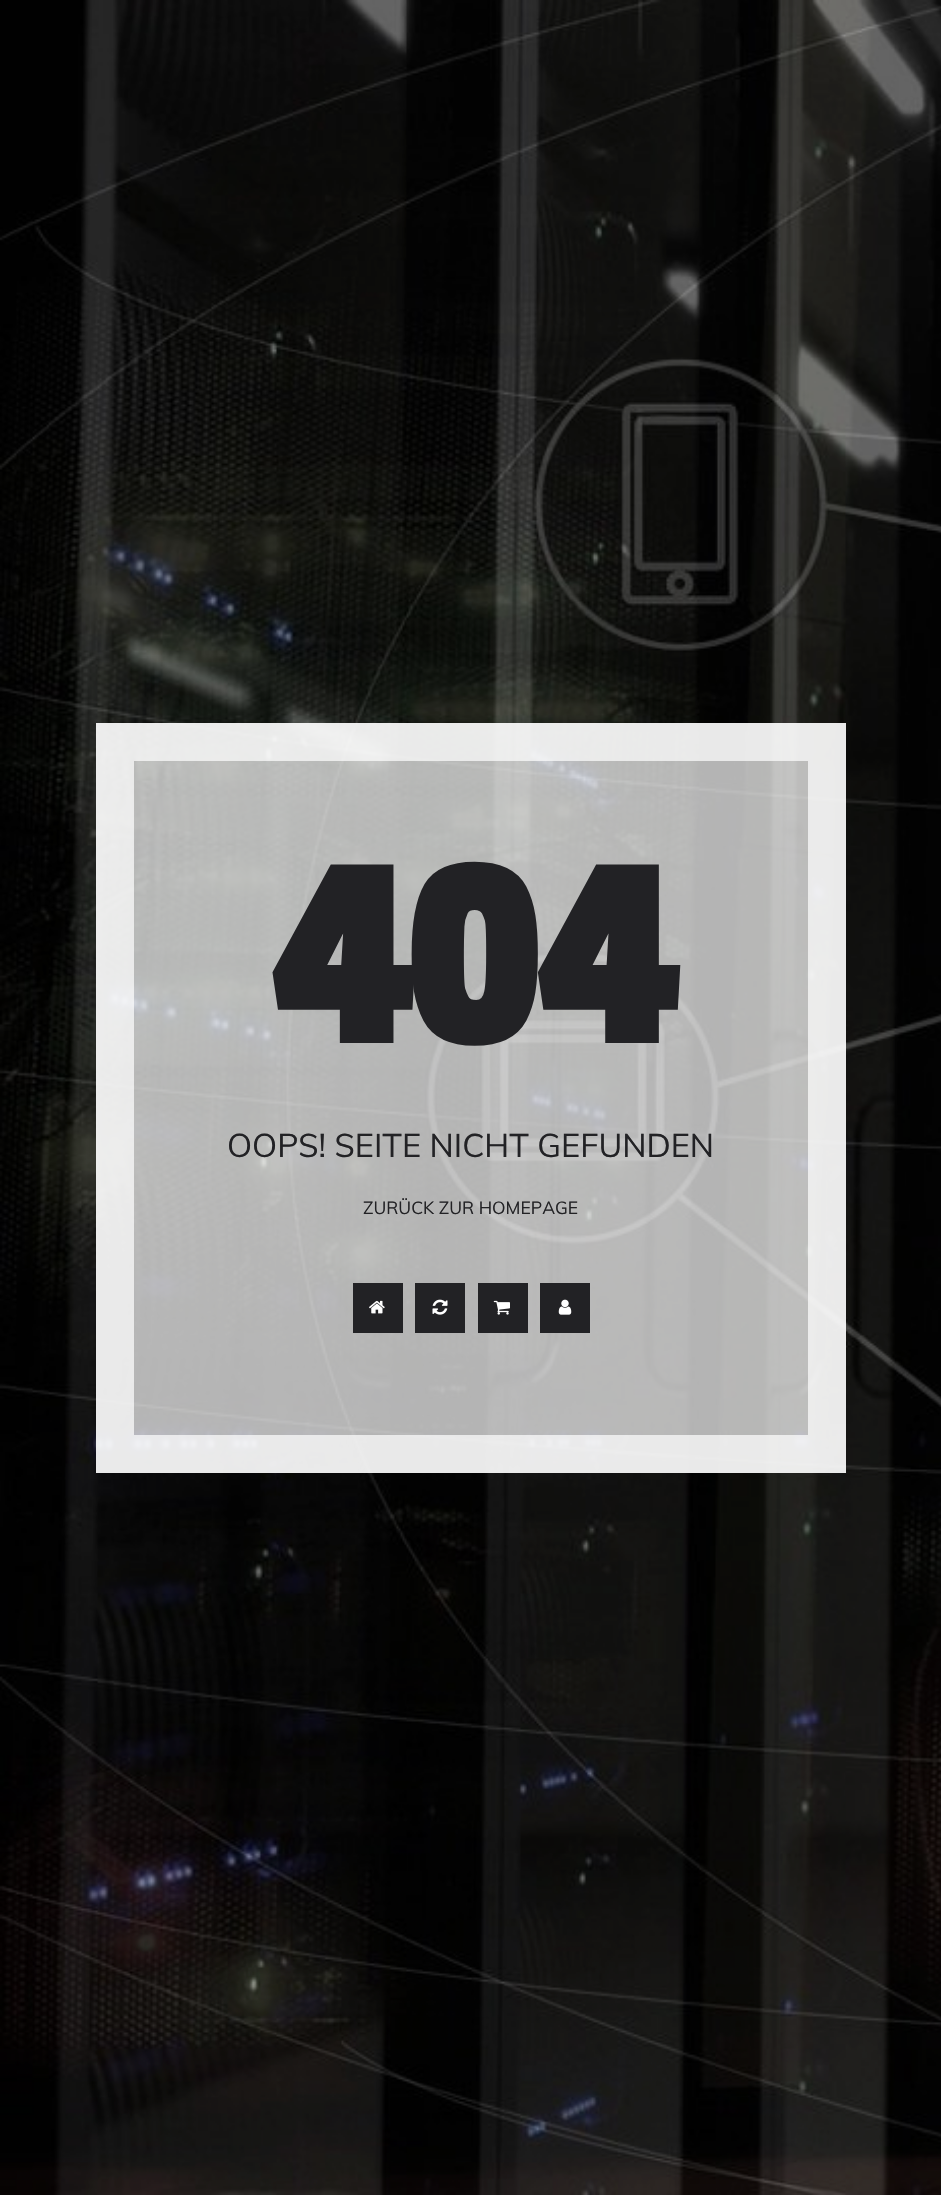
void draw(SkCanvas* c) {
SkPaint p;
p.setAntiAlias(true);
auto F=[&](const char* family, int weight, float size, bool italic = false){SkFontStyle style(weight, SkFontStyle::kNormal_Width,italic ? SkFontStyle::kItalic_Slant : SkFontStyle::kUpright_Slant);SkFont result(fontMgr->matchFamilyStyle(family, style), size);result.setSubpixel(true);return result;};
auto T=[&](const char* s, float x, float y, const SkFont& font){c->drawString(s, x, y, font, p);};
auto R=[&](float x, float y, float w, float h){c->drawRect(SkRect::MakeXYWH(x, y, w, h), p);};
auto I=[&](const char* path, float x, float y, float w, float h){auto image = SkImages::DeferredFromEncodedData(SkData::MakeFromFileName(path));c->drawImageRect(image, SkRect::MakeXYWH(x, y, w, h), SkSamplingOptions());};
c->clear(0xffffffff);
I("1.png",0,0,941,2195);
p.setColor(0xb3ffffff);
R(96,723,750,750);
p.setStroke(true);
p.setStrokeWidth(38);
c->drawRect(SkRect::MakeXYWH(115,742,712,712),p);
auto f1 = F("Passion One",700,275);
p.setStroke(false);
p.setColor(0xff222225);
T("404",270,1043,f1);
auto f2 = F("Muli",400,32.5);
T("OOPS! SEITE NICHT GEFUNDEN",227,1157,f2);
auto f3 = F("Muli",400,17.5);
T("ZURÜCK ZUR HOMEPAGE",363,1214,f3);
R(353,1283,50,50);
I("2.png",369,1300,16,14);
R(415,1283,50,50);
I("3.png",432,1299,16,16);
R(478,1283,50,50);
I("4.png",493,1300,17,15);
R(540,1283,50,50);
I("5.png",558,1299,14,16);
}
